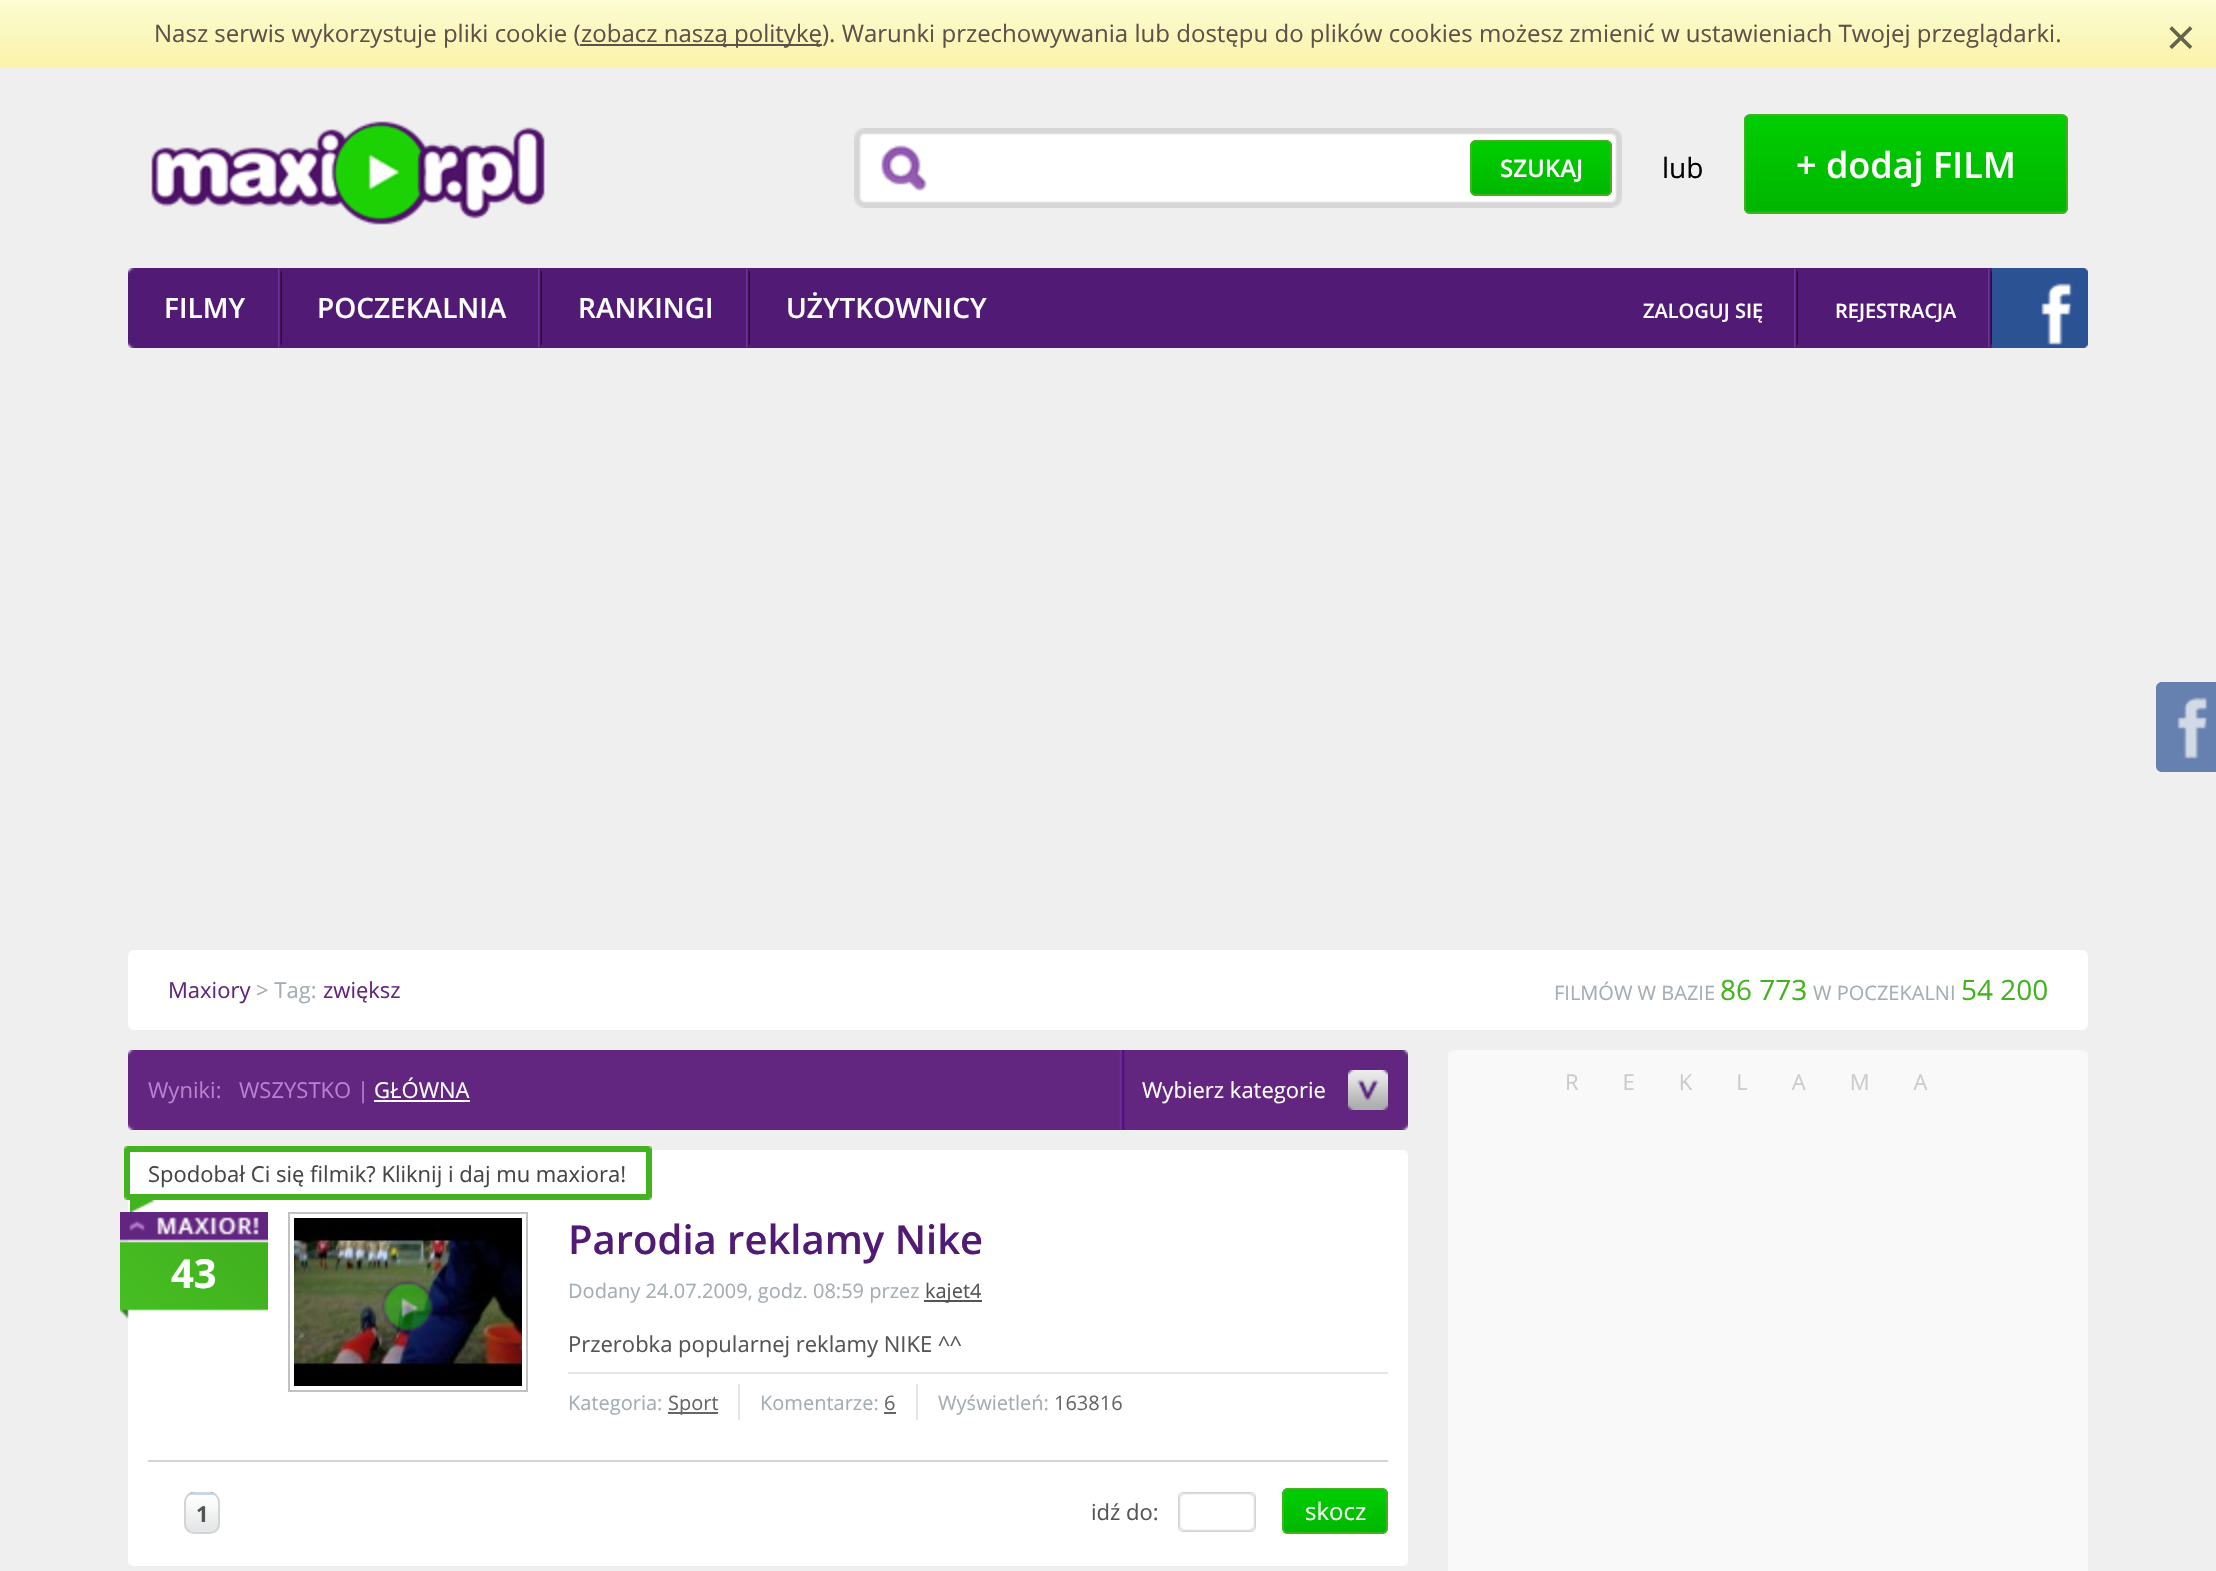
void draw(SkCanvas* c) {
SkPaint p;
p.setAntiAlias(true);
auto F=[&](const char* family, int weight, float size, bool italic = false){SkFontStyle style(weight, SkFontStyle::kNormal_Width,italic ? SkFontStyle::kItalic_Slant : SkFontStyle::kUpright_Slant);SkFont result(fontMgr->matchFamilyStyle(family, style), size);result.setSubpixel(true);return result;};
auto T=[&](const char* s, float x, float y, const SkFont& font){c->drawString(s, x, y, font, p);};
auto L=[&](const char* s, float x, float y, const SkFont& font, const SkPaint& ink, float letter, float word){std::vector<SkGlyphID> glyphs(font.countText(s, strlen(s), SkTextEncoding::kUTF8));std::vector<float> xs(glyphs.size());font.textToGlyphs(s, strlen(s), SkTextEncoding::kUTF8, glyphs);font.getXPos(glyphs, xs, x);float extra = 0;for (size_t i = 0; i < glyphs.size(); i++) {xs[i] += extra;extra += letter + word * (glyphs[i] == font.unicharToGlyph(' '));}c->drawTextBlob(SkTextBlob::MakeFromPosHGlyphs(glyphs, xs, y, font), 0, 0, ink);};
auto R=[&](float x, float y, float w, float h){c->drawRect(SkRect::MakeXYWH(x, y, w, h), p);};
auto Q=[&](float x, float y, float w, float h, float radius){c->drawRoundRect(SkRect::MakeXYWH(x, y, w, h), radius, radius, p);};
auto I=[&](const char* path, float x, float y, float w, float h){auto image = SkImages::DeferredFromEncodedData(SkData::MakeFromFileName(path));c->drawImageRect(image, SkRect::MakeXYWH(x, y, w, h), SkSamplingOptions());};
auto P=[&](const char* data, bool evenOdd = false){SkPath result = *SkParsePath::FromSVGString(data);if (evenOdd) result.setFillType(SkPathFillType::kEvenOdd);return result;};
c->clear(0xffefefef);
{
const SkColor colors[] = {0xfffbfcd2,0xfffbf3a9};
const float stops[] = {0,1};
const SkPoint ends[] = {{1108,0}, {1108,68}};
p.setShader(SkGradientShader::MakeLinear(ends, colors, stops, 2, SkTileMode::kClamp));
p.setAlpha(255);
}
R(0,0,2216,68);
auto f1 = F("Open Sans",400,24);
p.setShader(nullptr);
p.setColor(0xff5e5149);
T("Nasz serwis wykorzystuje pliki cookie (",154,42,f1);
R(580,44,242,2);
T("zobacz naszą politykę). Warunki przechowywania lub dostępu do plików cookies możesz zmienić w ustawieniach Twojej przeglądarki.",581,42,f1);
auto f2 = F("Open Sans",400,52);
p.setColor(0xff64634b);
T("×",2166,56,f2);
I("1.png",151,121,394,104);
I("2.png",854,128,768,80);
I("3.png",1470,140,142,56);
p.setStroke(true);
p.setStrokeWidth(2);
p.setColor(0xff41b11f);
c->drawRoundRect(SkRect::MakeXYWH(1471,141,140,54),5,5,p);
auto f3 = F("Open Sans",600,24);
p.setStroke(false);
p.setColor(0xffffffff);
T("SZUKAJ",1500,177,f3);
auto f4 = F("Open Sans",400,28);
p.setColor(0xff000000);
T("lub",1662,178,f4);
I("4.png",1744,116,324,98);
p.setStroke(true);
p.setColor(0xff41b11f);
c->drawRoundRect(SkRect::MakeXYWH(1745,115,322,98),5,5,p);
auto f5 = F("Open Sans",600,36);
p.setStroke(false);
p.setColor(0xffffffff);
T("+ dodaj FILM",1796,178,f5);
I("5.png",128,268,1960,80);
I("6.png",278,268,4,80);
auto f6 = F("Open Sans",600,28);
T("FILMY",164,318,f6);
I("6.png",538,268,4,80);
T("POCZEKALNIA",317,318,f6);
I("6.png",746,268,4,80);
T("RANKINGI",578,318,f6);
T("UŻYTKOWNICY",786,318,f6);
I("6.png",1794,268,4,80);
auto f7 = F("Open Sans",600,20);
T("ZALOGUJ SIĘ",1643,318,f7);
I("6.png",1988,268,4,80);
T("REJESTRACJA",1835,318,f7);
p.setColor(0xff2b5293);
c->drawPath(P("M1992 268h90c3.5 0 6 2.5 6 6v68c0 3.5-2.5 6-6 6h-90z"),p);
I("7.png",2041,283,32,62);
p.setColor(0xffffffff);
Q(128,950,1960,80,6);
auto f8 = F("Open Sans",400,22);
p.setColor(0xff622680);
T("Maxiory",168,998,f8);
p.setColor(0xffa3adb2);
T("> Tag:",256,998,f8);
p.setColor(0xff622680);
T("zwiększ",323,998,f8);
auto f9 = F("Open Sans",400,20);
p.setColor(0xffa3adb2);
T("FILMÓW W BAZIE",1554,1000,f9);
p.setColor(0xff42b31f);
T("86 773",1720,1000,f4);
p.setColor(0xffa3adb2);
T("W POCZEKALNI",1813,1000,f9);
p.setColor(0xff42b31f);
T("54 200",1961,1000,f4);
I("8.png",128,1050,1280,80);
p.setColor(0xffb780d2);
T("Wyniki:",148,1098,f8);
T("WSZYSTKO |",239,1098,f8);
p.setColor(0xffffffff);
T("GŁÓWNA",374,1098,f8);
R(374,1100,96,2);
T("Wybierz kategorie",1142,1098,f8);
I("9.png",1348,1070,40,40);
I("10.png",649,1150,759,20);
R(128,1170,1280,376);
I("11.png",120,1212,148,106);
auto f10 = F("Open Sans",700,40);
T("43",171,1288,f10);
p.setStroke(true);
p.setColor(0xffc2c2c2);
c->drawRect(SkRect::MakeXYWH(289,1213,238,178),p);
p.setStroke(false);
p.setColor(0xff000000);
R(294,1368,228,18);
I("12.png",294,1218,228,150);
I("13.png",381,1280,54,54);
auto f11 = F("Open Sans",600,40);
p.setColor(0xff511a75);
T("Parodia reklamy Nike",568,1254,f11);
p.setColor(0xffa3adb2);
T("Dodany 24.07.2009, godz. 08:59 przez",568,1298,f9);
p.setColor(0xff545454);
R(924,1300,58,2);
T("kajet4",925,1298,f9);
T("Przerobka popularnej reklamy NIKE ^^",568,1352,f8);
p.setColor(0xffe6e6e6);
R(568,1372,820,2);
R(738,1384,2,36);
p.setColor(0xffa3adb2);
T("Kategoria:",568,1410,f9);
p.setColor(0xff666666);
R(668,1412,50,2);
T("Sport",668,1410,f9);
p.setColor(0xffe6e6e6);
R(916,1384,2,36);
p.setColor(0xffa3adb2);
T("Komentarze:",760,1410,f9);
p.setColor(0xff666666);
T("6",884,1410,f9);
R(884,1412,12,2);
p.setColor(0xffa3adb2);
T("Wyświetleń:",938,1410,f9);
p.setColor(0xff666666);
T("163816",1054,1410,f9);
p.setColor(0xffd4d4d4);
R(148,1460,1240,2);
I("14.png",184,1492,36,40);
p.setStroke(true);
c->drawRoundRect(SkRect::MakeXYWH(185,1493,34,40),9,9,p);
auto f12 = F("Open Sans",700,22);
p.setStroke(false);
p.setColor(0xff545454);
T("1",196,1522,f12);
T("idź do:",1091,1520,f8);
I("15.png",1178,1492,78,40);
I("16.png",1282,1488,106,46);
p.setStroke(true);
p.setColor(0xff41b11f);
c->drawRoundRect(SkRect::MakeXYWH(1283,1489,104,44),5,5,p);
p.setStroke(false);
p.setColor(0xffffffff);
T("skocz",1305,1520,f1);
I("17.png",128,1546,1280,20);
I("18.png",1448,1050,640,20);
p.setColor(0xfff9f9f9);
R(1448,1070,640,501);
p.setColor(0xffcccccc);
L("REKLAMA",1565,1090,f8,p,44,0);
p.setColor(0xff6681af);
c->drawPath(P("M2162 682h54v90h-54c-3.5 0-6-2.5-6-6v-78c0-3.5 2.5-6 6-6z"),p);
I("19.png",2177,697,31,62);
I("20.png",124,1146,6,6);
p.setColor(0xff42b31f);
R(130,1146,516,6);
I("21.png",646,1146,6,6);
R(646,1152,6,42);
R(124,1152,6,42);
I("22.png",124,1194,6,6);
R(130,1194,516,6);
I("23.png",646,1194,6,6);
I("24.png",130,1200,24,12);
I("25.png",124,1146,6,6);
I("26.png",646,1146,6,6);
p.setColor(0xffffffff);
R(130,1152,516,18);
p.setColor(0xff454545);
T("Spodobał Ci się filmik? Kliknij i daj mu maxiora!",148,1182,f8);
I("27.png",124,1194,6,6);
I("28.png",646,1194,6,6);
I("29.png",130,1200,24,12);
}
